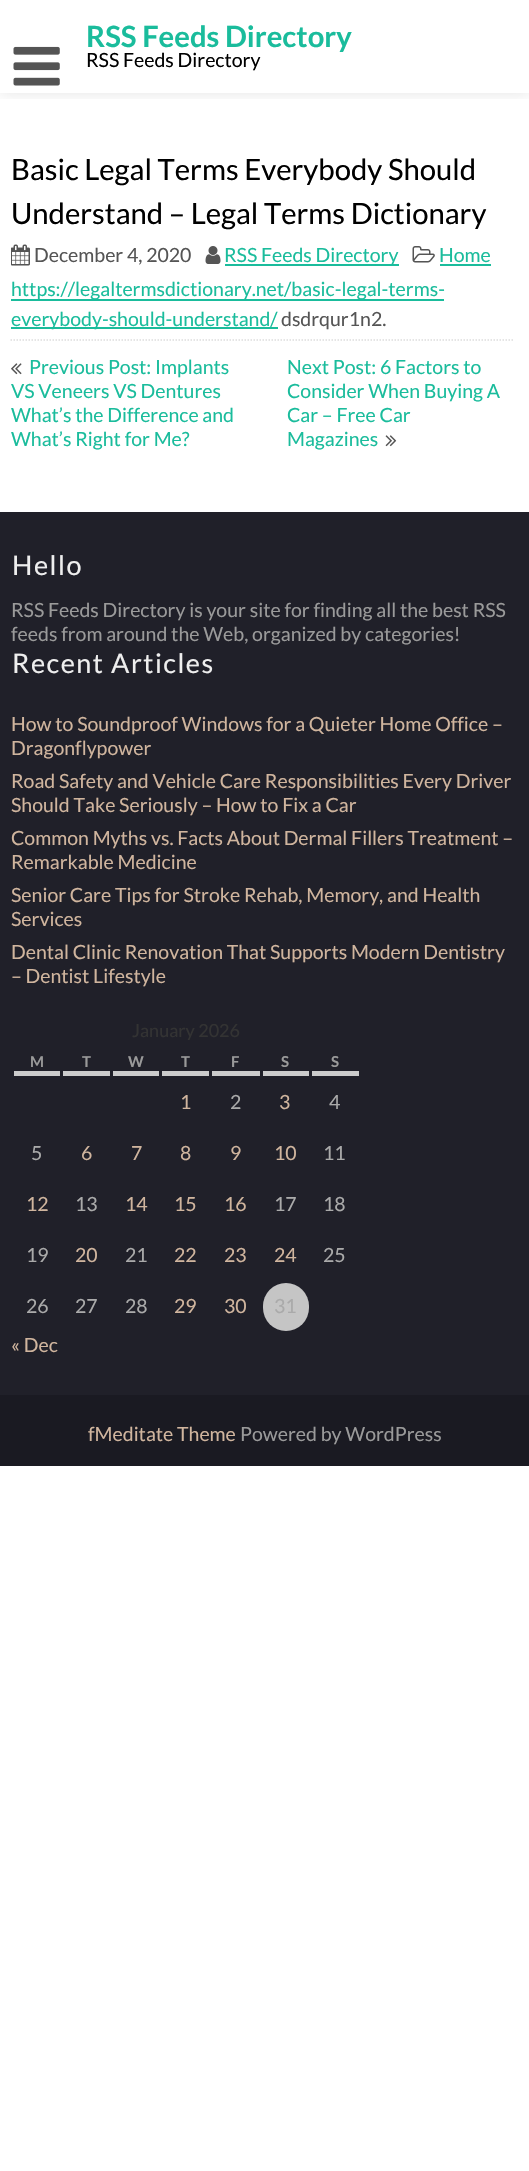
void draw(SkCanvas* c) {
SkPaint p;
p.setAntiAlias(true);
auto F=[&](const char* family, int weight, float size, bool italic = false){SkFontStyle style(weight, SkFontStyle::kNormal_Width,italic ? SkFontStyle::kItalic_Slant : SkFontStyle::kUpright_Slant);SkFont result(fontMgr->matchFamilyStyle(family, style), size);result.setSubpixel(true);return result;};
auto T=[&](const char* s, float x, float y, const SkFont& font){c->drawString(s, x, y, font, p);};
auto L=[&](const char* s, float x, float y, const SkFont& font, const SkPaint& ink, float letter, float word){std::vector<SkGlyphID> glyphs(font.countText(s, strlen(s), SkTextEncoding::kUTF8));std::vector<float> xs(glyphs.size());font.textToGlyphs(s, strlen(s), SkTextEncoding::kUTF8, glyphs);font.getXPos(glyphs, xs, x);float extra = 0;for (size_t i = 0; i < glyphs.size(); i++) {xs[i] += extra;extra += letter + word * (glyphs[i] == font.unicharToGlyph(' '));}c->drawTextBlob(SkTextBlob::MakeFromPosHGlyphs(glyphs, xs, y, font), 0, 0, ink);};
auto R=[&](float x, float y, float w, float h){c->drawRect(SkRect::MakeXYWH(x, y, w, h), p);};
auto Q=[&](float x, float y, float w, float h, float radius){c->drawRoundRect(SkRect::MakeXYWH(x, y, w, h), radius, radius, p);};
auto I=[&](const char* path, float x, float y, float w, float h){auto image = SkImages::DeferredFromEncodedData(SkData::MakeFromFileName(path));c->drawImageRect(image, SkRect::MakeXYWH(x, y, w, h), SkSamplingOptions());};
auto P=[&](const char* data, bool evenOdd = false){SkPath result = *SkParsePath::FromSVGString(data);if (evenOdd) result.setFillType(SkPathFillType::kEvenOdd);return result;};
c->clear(0xffffffff);
c->save();
c->clipRect(SkRect::MakeXYWH(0,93,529,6));
p.setColor(0x1a000000);
p.setMaskFilter(SkMaskFilter::MakeBlur(kNormal_SkBlurStyle, 7.5));
c->drawRect(SkRect::MakeXYWH(0,0,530,93),p);
p.setMaskFilter(nullptr);
c->restore();
I("1.png",13,46,47,40);
auto f1 = F("Lato",700,29.25);
p.setColor(0xff1abc9c);
T("RSS Feeds Directory",86,47,f1);
auto f2 = F("Lato",400,19.5);
p.setColor(0xff000000);
T("RSS Feeds Directory",86,67,f2);
auto f3 = F("Lato",400,29.25);
T("Basic Legal Terms Everybody Should",11,180,f3);
T("Understand – Legal Terms Dictionary",11,224,f3);
I("2.png",11,244,19,22);
p.setColor(0xff555555);
T("December 4, 2020",34,262,f2);
I("3.png",205,246,16,18);
p.setColor(0xff1abc9c);
R(225,264,174,2);
T("RSS Feeds Directory",224,262,f2);
I("4.png",412,246,23,17);
T("Home",439,262,f2);
R(440,264,51,2);
R(11,299,433,2);
T("https://legaltermsdictionary.net/basic-legal-terms-",11,296,f2);
R(11,327,267,2);
T("everybody-should-understand/",11,326,f2);
p.setColor(0xff555555);
T("dsdrqur1n2.",281,326,f2);
p.setStroke(true);
p.setStrokeWidth(1.5);
p.setColor(0xffdddddd);
p.setPathEffect(SkDashPathEffect::Make({{1.5f,1.5f}}, 0));
c->drawPath(P("M10.5 340h502.5"),p);
p.setPathEffect(nullptr);
I("5.png",11,363,11,12);
p.setStroke(false);
p.setColor(0xff1abc9c);
T("Previous Post: Implants",29,374,f2);
T("VS Veneers VS Dentures",11,398,f2);
T("What’s the Difference and",11,422,f2);
T("What’s Right for Me?",11,446,f2);
T("Next Post: 6 Factors to",287,374,f2);
T("Consider When Buying A",287,398,f2);
T("Car – Free Car",287,422,f2);
T("Magazines",287,446,f2);
I("6.png",385,435,12,12);
p.setColor(0xff202029);
R(0,512,529,883);
auto f4 = F("Lato",400,27);
p.setColor(0xffeeeeee);
L("Hello",12,575,f4,p,1.5,0);
p.setColor(0xff9a9a9a);
T("RSS Feeds Directory is your site for finding all the best RSS",11,617,f2);
T("feeds from around the Web, organized by categories!",11,641,f2);
p.setColor(0xffeeeeee);
L("Recent Articles",12,673,f4,p,1.5,0);
p.setColor(0xffd0b59e);
T("How to Soundproof Windows for a Quieter Home Office –",11,731,f2);
T("Dragonflypower",11,755,f2);
T("Road Safety and Vehicle Care Responsibilities Every Driver",11,788,f2);
T("Should Take Seriously – How to Fix a Car",11,812,f2);
T("Common Myths vs. Facts About Dermal Fillers Treatment –",11,845,f2);
T("Remarkable Medicine",11,869,f2);
T("Senior Care Tips for Stroke Rehab, Memory, and Health",11,902,f2);
T("Services",11,926,f2);
T("Dental Clinic Renovation That Supports Modern Dentistry",11,959,f2);
T("– Dentist Lifestyle",11,983,f2);
auto f5 = F("Lato",400,18);
p.setColor(0xff333333);
T("January 2026",132,1037,f5);
p.setColor(0xffcccccc);
R(14,1071,46,5);
auto f6 = F("Lato",700,15);
p.setColor(0xff9a9a9a);
T("M",30,1067,f6);
p.setColor(0xffcccccc);
R(63,1071,47,5);
p.setColor(0xff9a9a9a);
T("T",82,1067,f6);
p.setColor(0xffcccccc);
R(113,1071,46,5);
p.setColor(0xff9a9a9a);
T("W",128,1067,f6);
p.setColor(0xffcccccc);
R(162,1071,47,5);
p.setColor(0xff9a9a9a);
T("T",181,1067,f6);
p.setColor(0xffcccccc);
R(212,1071,48,5);
p.setColor(0xff9a9a9a);
T("F",231,1067,f6);
p.setColor(0xffcccccc);
R(263,1071,46,5);
p.setColor(0xff9a9a9a);
T("S",281,1067,f6);
p.setColor(0xffcccccc);
R(312,1071,47,5);
p.setColor(0xff9a9a9a);
T("S",331,1067,f6);
p.setColor(0xffd0b59e);
T("1",180,1109,f2);
p.setColor(0xffaaaaaa);
T("2",230,1109,f2);
p.setColor(0xffd0b59e);
T("3",279,1109,f2);
p.setColor(0xffaaaaaa);
T("4",329,1109,f2);
T("5",31,1160,f2);
p.setColor(0xffd0b59e);
T("6",81,1160,f2);
T("7",131,1160,f2);
T("8",180,1160,f2);
T("9",230,1160,f2);
T("10",274,1160,f2);
p.setColor(0xffaaaaaa);
T("11",323,1160,f2);
p.setColor(0xffd0b59e);
T("12",26,1211,f2);
p.setColor(0xffaaaaaa);
T("13",75,1211,f2);
p.setColor(0xffd0b59e);
T("14",125,1211,f2);
T("15",174,1211,f2);
T("16",224,1211,f2);
p.setColor(0xffaaaaaa);
T("17",274,1211,f2);
T("18",323,1211,f2);
T("19",26,1262,f2);
p.setColor(0xffd0b59e);
T("20",75,1262,f2);
p.setColor(0xffaaaaaa);
T("21",125,1262,f2);
p.setColor(0xffd0b59e);
T("22",174,1262,f2);
T("23",224,1262,f2);
T("24",274,1262,f2);
p.setColor(0xffaaaaaa);
T("25",323,1262,f2);
T("26",26,1313,f2);
T("27",75,1313,f2);
T("28",125,1313,f2);
p.setColor(0xffd0b59e);
T("29",174,1313,f2);
T("30",224,1313,f2);
p.setColor(0xffc5c5c5);
Q(263,1283,46,48,23);
p.setColor(0xffaaaaaa);
T("31",274,1313,f2);
p.setColor(0xffd0b59e);
T("« Dec",11,1352,f2);
p.setColor(0xff1a1a22);
R(0,1395,529,71);
p.setColor(0xffd0b59e);
T("fMeditate Theme",88,1441,f2);
p.setColor(0xff9a9a9a);
T("Powered by WordPress",240,1441,f2);
}
